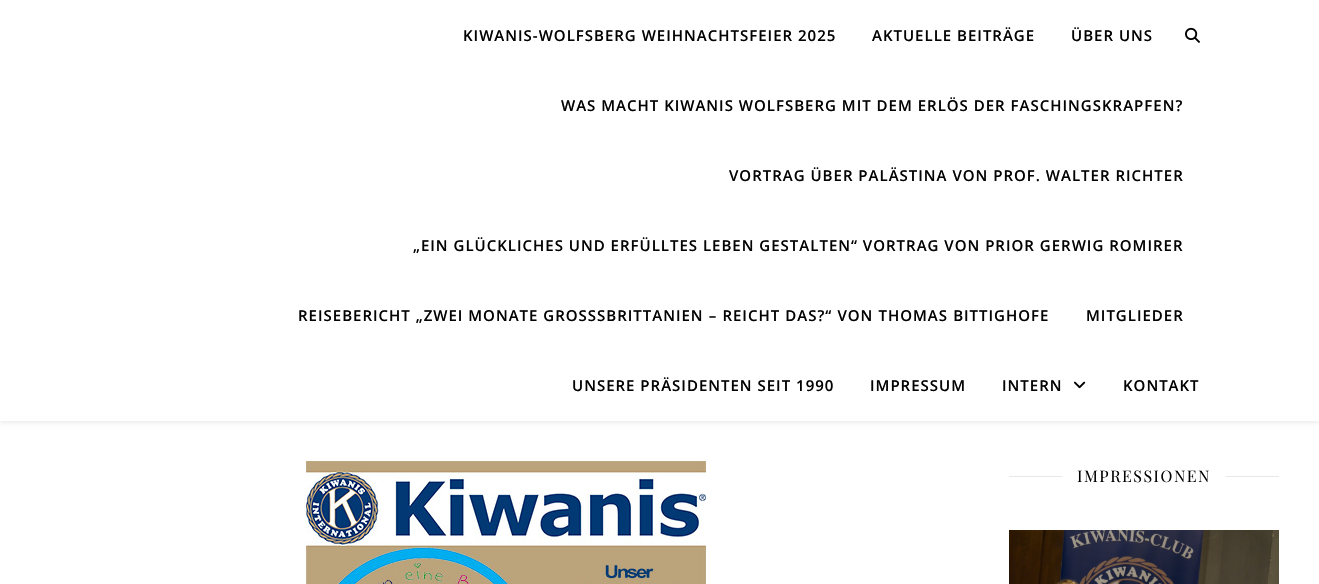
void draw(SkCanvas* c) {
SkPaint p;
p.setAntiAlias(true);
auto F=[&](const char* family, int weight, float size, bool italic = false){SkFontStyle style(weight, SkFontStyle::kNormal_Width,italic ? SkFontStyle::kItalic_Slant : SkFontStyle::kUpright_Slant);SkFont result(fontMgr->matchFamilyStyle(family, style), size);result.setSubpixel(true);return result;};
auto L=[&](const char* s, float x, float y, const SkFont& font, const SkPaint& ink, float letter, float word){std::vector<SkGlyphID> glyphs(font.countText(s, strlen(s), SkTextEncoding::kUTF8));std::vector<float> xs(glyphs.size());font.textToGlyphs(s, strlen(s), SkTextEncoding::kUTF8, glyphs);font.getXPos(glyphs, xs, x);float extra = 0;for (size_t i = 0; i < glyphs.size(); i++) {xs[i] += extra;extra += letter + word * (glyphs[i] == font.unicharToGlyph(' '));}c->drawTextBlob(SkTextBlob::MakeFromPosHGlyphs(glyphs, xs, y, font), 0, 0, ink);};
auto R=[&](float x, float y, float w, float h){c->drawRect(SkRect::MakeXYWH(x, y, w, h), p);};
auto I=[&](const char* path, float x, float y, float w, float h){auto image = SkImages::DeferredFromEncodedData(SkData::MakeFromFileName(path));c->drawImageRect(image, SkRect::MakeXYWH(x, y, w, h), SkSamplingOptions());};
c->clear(0xffffffff);
p.setColor(0x1a000000);
p.setMaskFilter(SkMaskFilter::MakeBlur(kNormal_SkBlurStyle, 2.5));
c->drawRect(SkRect::MakeXYWH(0,1,1319,421),p);
p.setMaskFilter(nullptr);
p.setColor(0xffffffff);
R(0,0,1319,421);
auto f1 = F("Open Sans",600,15);
p.setColor(0xff030303);
L("KIWANIS-WOLFSBERG WEIHNACHTSFEIER 2025",463,41,f1,p,1,0);
L("AKTUELLE BEITRÄGE",872,41,f1,p,1,0);
L("ÜBER UNS",1071,41,f1,p,1,0);
L("WAS MACHT KIWANIS WOLFSBERG MIT DEM ERLÖS DER FASCHINGSKRAPFEN?",561,111,f1,p,1,0);
L("VORTRAG ÜBER PALÄSTINA VON PROF. WALTER RICHTER",729,181,f1,p,1,0);
L("„EIN GLÜCKLICHES UND ERFÜLLTES LEBEN GESTALTEN“ VORTRAG VON PRIOR GERWIG ROMIRER",413,251,f1,p,1,0);
L("REISEBERICHT „ZWEI MONATE GROSS",298,321,f1,p,1,0);
L("SBRITTANIEN – REICHT DAS?“ VON THOMAS BITTIGHOFE",597,321,f1,p,1,.25);
L("MITGLIEDER",1086,321,f1,p,1,0);
L("UNSERE PRÄSIDENTEN SEIT 1990",572,391,f1,p,1,0);
L("IMPRESSUM",870,391,f1,p,1,0);
L("INTERN",1002,391,f1,p,1,0);
I("1.png",1074,381,12,8);
L("KONTAKT",1123,391,f1,p,1,0);
I("2.png",1185,27,15,16);
I("3.png",306,461,400,123);
p.setColor(0xffe8e8e8);
R(1009,476,53,1);
auto f2 = F("Playfair Display",400,16);
p.setColor(0xff030303);
L("IMPRESSIONEN",1077,482,f2,p,1.5,0);
p.setColor(0xffe8e8e8);
R(1226,476,53,1);
I("4.png",1009,530,270,54);
}
